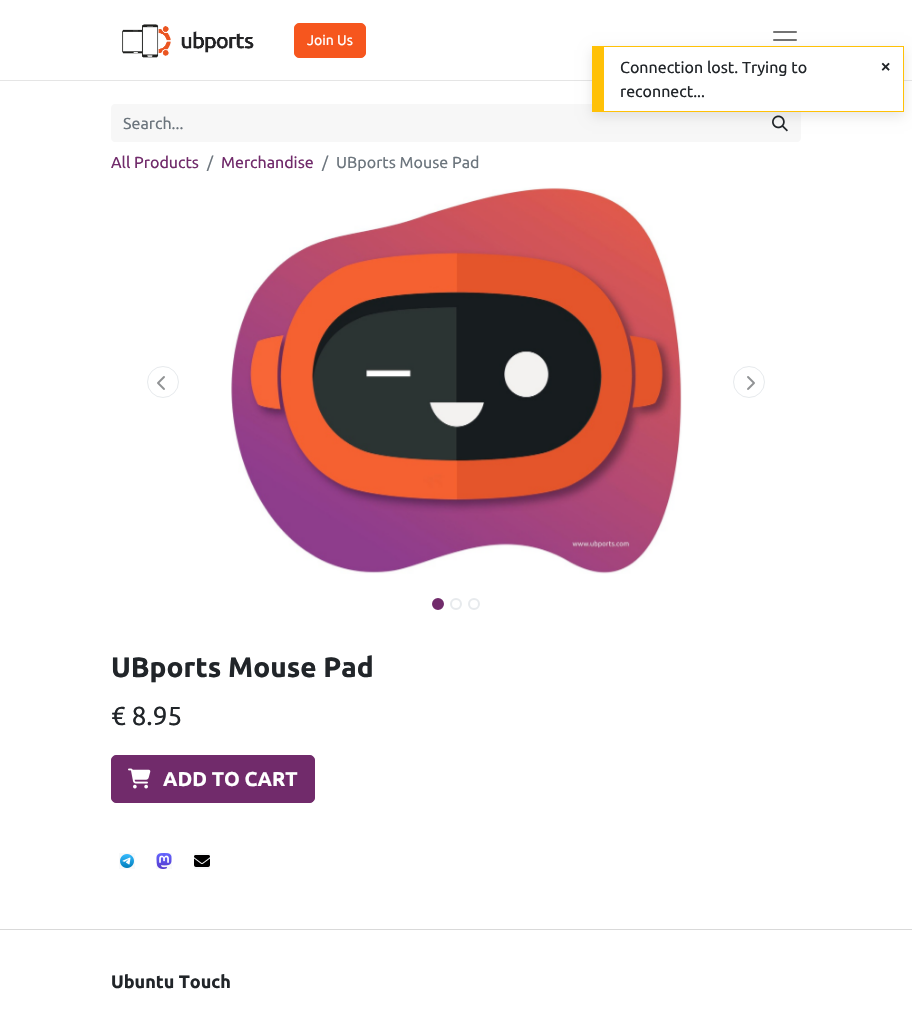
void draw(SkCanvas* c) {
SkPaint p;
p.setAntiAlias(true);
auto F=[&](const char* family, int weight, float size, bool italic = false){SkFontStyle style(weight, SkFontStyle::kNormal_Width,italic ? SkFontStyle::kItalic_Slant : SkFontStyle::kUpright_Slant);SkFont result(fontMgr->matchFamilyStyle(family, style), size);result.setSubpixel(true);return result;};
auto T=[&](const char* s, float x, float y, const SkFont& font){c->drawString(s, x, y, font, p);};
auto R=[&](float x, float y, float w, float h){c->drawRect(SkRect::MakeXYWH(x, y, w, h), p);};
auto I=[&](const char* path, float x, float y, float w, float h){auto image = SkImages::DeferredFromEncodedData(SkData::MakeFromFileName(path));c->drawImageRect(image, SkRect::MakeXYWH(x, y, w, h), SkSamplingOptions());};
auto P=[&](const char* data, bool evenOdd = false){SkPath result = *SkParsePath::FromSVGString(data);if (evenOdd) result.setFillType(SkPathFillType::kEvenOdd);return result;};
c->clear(0xffffffff);
p.setColor(0xffe5e5e5);
R(0,80,912,1);
I("1.png",122,24,132,34);
p.setColor(0xfff6561e);
c->drawRoundRect(SkRect::MakeXYWH(294.5,23.5,71,34),4.5,4.5,p);
p.setStroke(true);
p.setStrokeWidth(1);
c->drawRoundRect(SkRect::MakeXYWH(294.5,23.5,71,34),4.5,4.5,p);
auto f1 = F("Ubuntu",400,14);
p.setStroke(false);
p.setColor(0xffffffff);
T("Join Us",307,45,f1);
I("2.png",773,31,24,10);
p.setColor(0xfff7f7f7);
c->drawPath(P("M115 104h645v38h-645c-2 0-4-2-4-4v-30c0-2 2-4 4-4z"),p);
auto f2 = F("Ubuntu",400,16);
p.setColor(0xff6c757d);
T("Search...",123,129,f2);
p.setColor(0xfff7f7f7);
c->drawPath(P("M759 104h38c2 0 4 2 4 4v30c0 2-2 4-4 4h-38z"),p);
I("3.png",772,115,16,17);
p.setColor(0xff712b6b);
T("All Products",111,168,f2);
p.setColor(0xff6c757d);
T("/",207,168,f2);
p.setColor(0xff712b6b);
T("Merchandise",221,168,f2);
p.setColor(0xff6c757d);
T("/",322,168,f2);
T("UBports Mouse Pad",336,168,f2);
p.setStroke(true);
p.setColor(0xffe7eaed);
c->drawCircle(163,382,15.5,p);
I("4.png",157,376,8,14);
I("5.png",231,187,451,387);
c->drawCircle(749,382,15.5,p);
I("6.png",747,376,8,14);
p.setStroke(false);
p.setColor(0xff712b6b);
c->drawCircle(438,604,5,p);
p.setStroke(true);
p.setStrokeWidth(2);
c->drawCircle(438,604,5,p);
p.setColor(0xffe7eaed);
c->drawCircle(456,604,5,p);
c->drawCircle(474,604,5,p);
auto f3 = F("Ubuntu",700,28);
p.setStroke(false);
p.setColor(0xff212529);
T("UBports Mouse Pad",111,677,f3);
auto f4 = F("Ubuntu",400,26);
T("€ 8.95",111,725,f4);
p.setColor(0xff712b6b);
c->drawRoundRect(SkRect::MakeXYWH(111.5,755.5,203,47),4.5,4.5,p);
p.setStroke(true);
p.setStrokeWidth(1);
c->drawRoundRect(SkRect::MakeXYWH(111.5,755.5,203,47),4.5,4.5,p);
I("7.png",128,768,23,21);
auto f5 = F("Ubuntu",700,20);
p.setStroke(false);
p.setColor(0xffffffff);
T("ADD TO CART",163,786,f5);
p.setColor(0xfff8f9fa);
R(119,853,16,16);
I("8.png",120,854,14,14);
R(156,853,16,16);
I("9.png",156,853,16,16);
R(194,853,16,16);
I("10.png",194,855,16,12);
p.setColor(0xffd9d9d9);
R(0,929,912,1);
auto f6 = F("Ubuntu",700,18);
p.setColor(0xff212529);
T("Ubuntu Touch",111,988,f6);
p.setColor(0x1a000000);
p.setMaskFilter(SkMaskFilter::MakeBlur(kNormal_SkBlurStyle, 6));
c->drawRect(SkRect::MakeXYWH(592,50,312,66),p);
p.setMaskFilter(nullptr);
p.setColor(0xffffffff);
R(604,47,299,64);
p.setColor(0xffffc107);
R(604,46,300,1);
R(903,46,1,66);
R(604,111,300,1);
R(592,46,12,66);
p.setColor(0xff212529);
T("Connection lost. Trying to",620,73,f2);
T("reconnect...",620,97,f2);
auto f7 = F("Liberation Sans",700,16);
T("×",881,72,f7);
}
